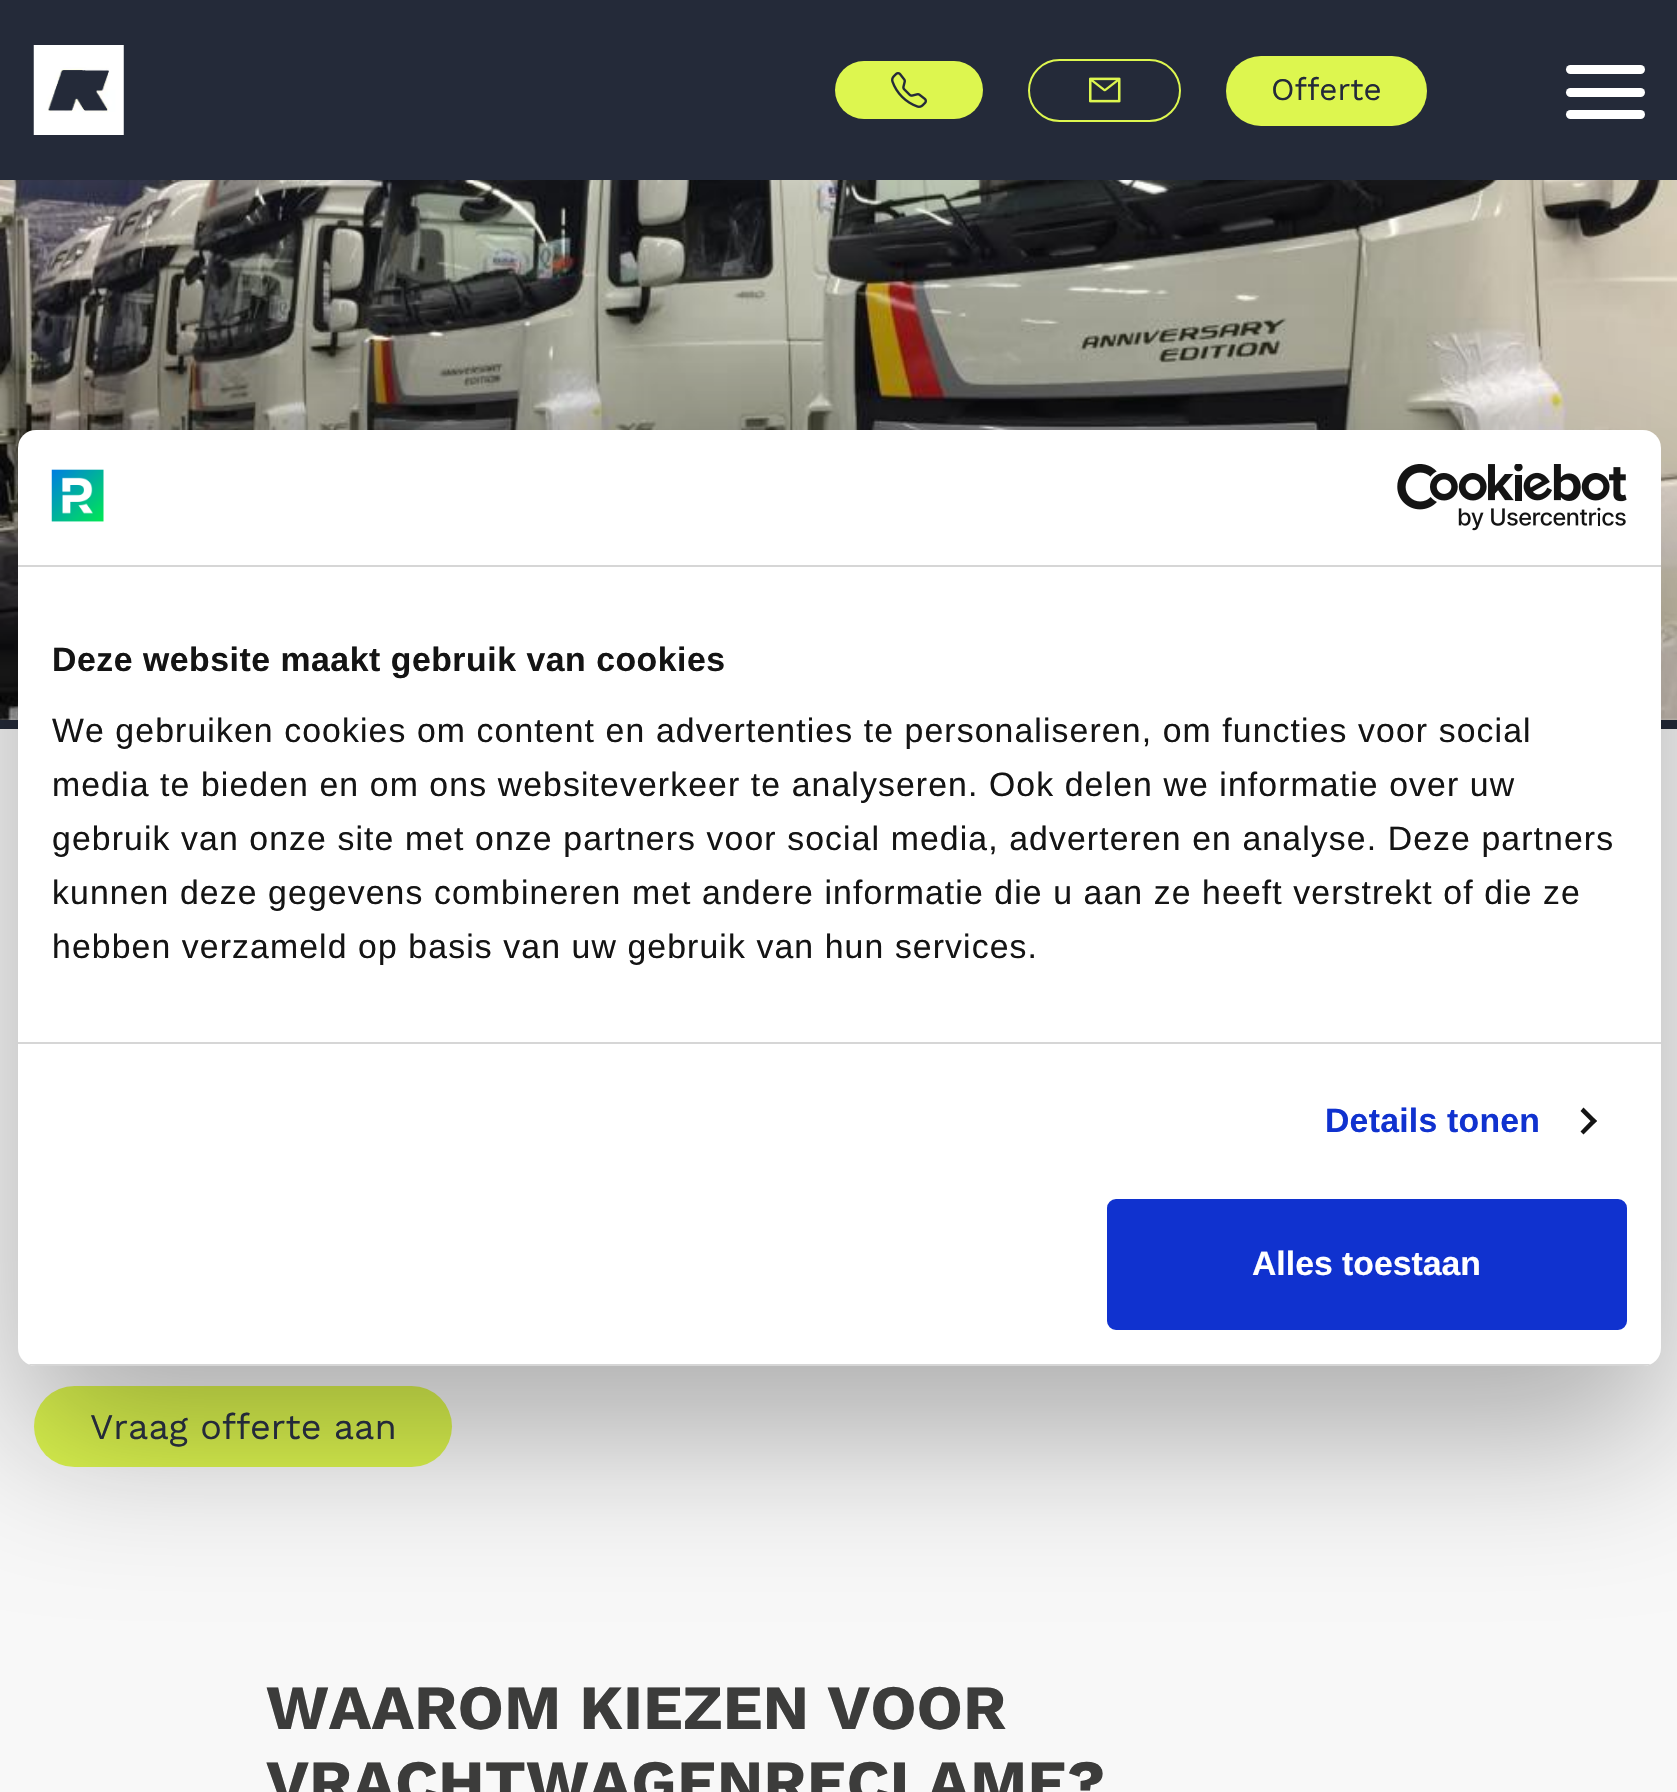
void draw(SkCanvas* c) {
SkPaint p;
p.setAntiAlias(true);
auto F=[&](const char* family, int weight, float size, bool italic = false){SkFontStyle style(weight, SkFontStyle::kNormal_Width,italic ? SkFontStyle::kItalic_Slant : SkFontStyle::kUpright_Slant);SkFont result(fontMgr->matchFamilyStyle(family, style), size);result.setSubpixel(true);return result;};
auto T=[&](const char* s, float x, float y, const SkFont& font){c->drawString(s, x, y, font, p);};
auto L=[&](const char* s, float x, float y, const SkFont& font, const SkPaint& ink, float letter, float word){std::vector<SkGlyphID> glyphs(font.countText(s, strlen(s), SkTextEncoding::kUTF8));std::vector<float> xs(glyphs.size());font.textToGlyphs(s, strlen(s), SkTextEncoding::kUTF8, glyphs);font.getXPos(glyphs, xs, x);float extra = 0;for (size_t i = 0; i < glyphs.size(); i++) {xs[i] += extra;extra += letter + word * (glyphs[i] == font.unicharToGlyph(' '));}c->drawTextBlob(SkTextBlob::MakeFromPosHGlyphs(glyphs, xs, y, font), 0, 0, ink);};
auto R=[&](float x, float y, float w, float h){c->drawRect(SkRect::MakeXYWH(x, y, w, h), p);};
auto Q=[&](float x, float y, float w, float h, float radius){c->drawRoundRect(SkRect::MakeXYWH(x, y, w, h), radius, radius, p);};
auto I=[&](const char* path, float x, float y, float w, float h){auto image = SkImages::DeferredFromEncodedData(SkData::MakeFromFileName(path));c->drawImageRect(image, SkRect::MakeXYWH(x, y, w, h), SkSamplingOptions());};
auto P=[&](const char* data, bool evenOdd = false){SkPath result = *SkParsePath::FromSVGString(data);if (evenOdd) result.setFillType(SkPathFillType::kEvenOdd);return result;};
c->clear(0xfff8f8f8);
p.setColor(0xff242a39);
R(0,0,1677,180);
I("1.png",33,45,91,90);
p.setColor(0xffddf64f);
Q(835,61,148,58,29);
I("2.png",891,72,36,36);
p.setStroke(true);
p.setStrokeWidth(2);
c->drawRoundRect(SkRect::MakeXYWH(1029,60,151,61),30.5,30.5,p);
I("3.png",1089,77,32,26);
p.setStroke(false);
Q(1226,56,201,70,35);
auto f1 = F("Work Sans",400,31.5);
p.setColor(0xff242a39);
T("Offerte",1271,100,f1);
p.setColor(0xffffffff);
Q(1566,110,79,9,4.5);
Q(1566,65,79,9,4.5);
Q(1566,88,79,9,4.5);
p.setColor(0xff242a39);
R(0,720,1677,9);
I("6.png",0,180,1677,540);
p.setColor(0xffddf64f);
Q(34,1386,418,81,40.5);
p.setColor(0x4d000000);
p.setMaskFilter(SkMaskFilter::MakeBlur(kNormal_SkBlurStyle, 76.5));
c->drawRoundRect(SkRect::MakeXYWH(18,502,1643,936),18,18,p);
p.setMaskFilter(nullptr);
p.setColor(0xffffffff);
Q(18,430,1643,936,18);
p.setColor(0xffd6d6d6);
R(18,565,1643,2);
I("4.png",51,469,53,53);
I("5.png",1397,464,230,67);
R(18,1042,1643,2);
auto f2 = F("Liberation Sans",700,33.75);
p.setColor(0xff141414);
L("Deze website maakt gebruik van cookies",52,671,f2,p,.55,0);
auto f3 = F("Liberation Sans",400,33.75);
L("We gebruiken cookies om content en advertenties te personaliseren, om functies voor social",52,742,f3,p,1.12,0);
L("media te bieden en om ons websiteverkeer te analyseren. Ook delen we informatie over uw",52,796,f3,p,1.12,0);
L("gebruik van onze site met onze partners voor social media, adverteren en analyse. Deze partners",52,850,f3,p,1.12,0);
L("kunnen deze gegevens combineren met andere informatie die u aan ze heeft verstrekt of die ze",52,904,f3,p,1.12,0);
L("hebben verzameld op basis van uw gebruik van hun services.",52,958,f3,p,1.12,0);
p.setColor(0xff1032cf);
L("Details tonen",1325,1132,f2,p,.25,0);
p.setColor(0xff141414);
c->drawPath(P("M1583.5 1107.5l13.5 13.5l-3.5 3l-13-13z"),p);
c->drawPath(P("M1593.5 1118l3.5 3l-13.5 13.5l-3-3z"),p);
c->save();
c->clipPath(P("M36 430h1607c10 0 18 8 18 18v900c0 10-8 18-18 18h-1607c-10 0-18-8-18-18v-900c0-10 8-18 18-18z"),true);
p.setColor(0xffd6d6d6);
R(28,1364,1623,2);
c->restore();
p.setColor(0xff1032cf);
c->drawRoundRect(SkRect::MakeXYWH(1109.5,1201.5,515,126),6.5,6.5,p);
p.setStroke(true);
p.setStrokeWidth(5);
c->drawRoundRect(SkRect::MakeXYWH(1109.5,1201.5,515,126),6.5,6.5,p);
p.setStroke(false);
p.setColor(0xffffffff);
T("Alles toestaan",1252,1275,f2);
auto f4 = F("Work Sans",400,36);
p.setColor(0xff242a39);
T("Vraag offerte aan",90,1439,f4);
auto f5 = F("Work Sans",700,63);
p.setColor(0xff3c3c3b);
T("WAAROM KIEZEN VOOR",266,1729,f5);
T("VRACHTWAGENRECLAME?",266,1804,f5);
}
